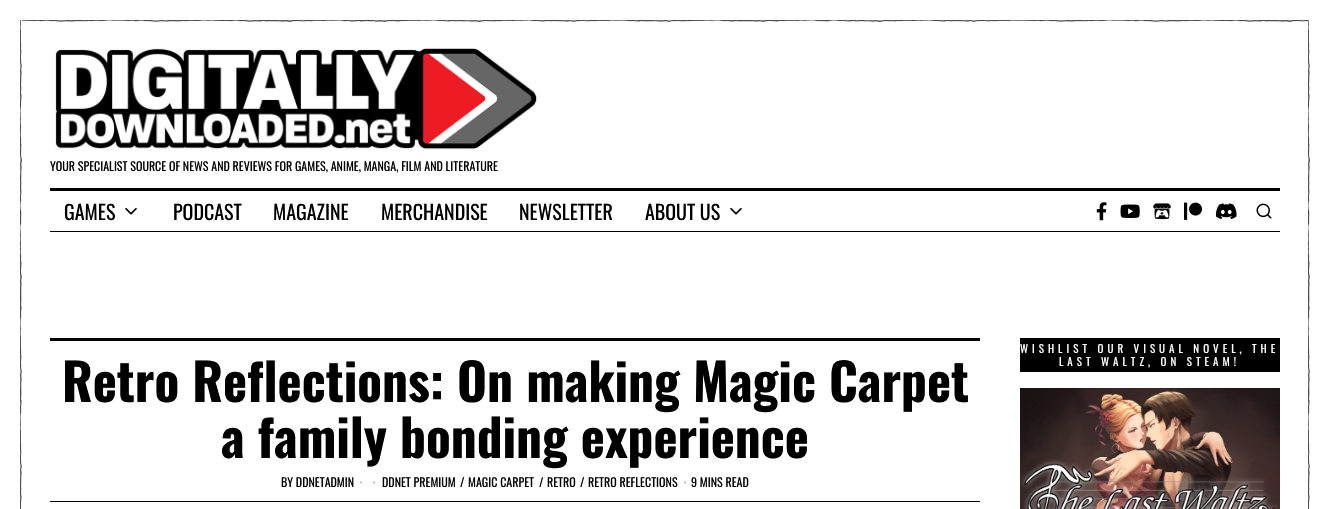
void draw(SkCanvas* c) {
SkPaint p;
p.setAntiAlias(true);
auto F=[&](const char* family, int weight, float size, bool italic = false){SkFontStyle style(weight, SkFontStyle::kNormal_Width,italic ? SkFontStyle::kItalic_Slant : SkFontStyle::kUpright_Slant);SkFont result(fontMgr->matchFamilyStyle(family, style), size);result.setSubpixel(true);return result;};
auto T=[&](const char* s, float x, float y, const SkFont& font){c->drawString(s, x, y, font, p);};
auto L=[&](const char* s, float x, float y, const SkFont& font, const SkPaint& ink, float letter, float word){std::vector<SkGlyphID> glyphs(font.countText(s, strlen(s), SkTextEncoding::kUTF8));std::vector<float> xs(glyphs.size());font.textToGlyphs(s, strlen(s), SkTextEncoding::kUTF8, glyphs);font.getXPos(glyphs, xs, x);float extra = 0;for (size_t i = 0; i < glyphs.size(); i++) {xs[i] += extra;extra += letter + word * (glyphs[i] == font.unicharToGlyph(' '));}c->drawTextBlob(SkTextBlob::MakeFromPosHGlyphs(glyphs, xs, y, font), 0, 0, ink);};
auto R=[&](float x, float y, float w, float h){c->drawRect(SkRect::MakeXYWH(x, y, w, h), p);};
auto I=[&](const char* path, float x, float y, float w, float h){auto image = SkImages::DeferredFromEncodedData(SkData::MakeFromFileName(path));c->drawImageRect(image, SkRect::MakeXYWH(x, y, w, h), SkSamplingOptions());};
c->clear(0xffffffff);
I("1.png",20,20,2,489);
I("2.png",22,20,1286,2);
I("1.png",1308,20,2,489);
I("3.png",55,48,482,102);
auto f1 = F("Oswald",400,12);
p.setColor(0xff000000);
T("YOUR SPECIALIST SOURCE OF NEWS AND REVIEWS FOR GAMES, ANIME, MANGA, FILM AND LITERATURE",50,171,f1);
R(50,188,1230,3);
R(50,231,1230,1);
auto f2 = F("Oswald",400,20);
T("GAMES",64,220,f2);
I("4.png",125,208,12,7);
T("PODCAST",173,220,f2);
T("MAGAZINE",273,220,f2);
T("MERCHANDISE",381,220,f2);
T("NEWSLETTER",519,220,f2);
T("ABOUT US",645,220,f2);
I("4.png",730,208,12,7);
I("5.png",1096,202,11,19);
I("6.png",1120,204,20,14);
I("7.png",1153,203,18,17);
I("8.png",1184,202,18,18);
I("9.png",1215,203,22,17);
I("10.png",1256,203,16,16);
R(1020,338,260,34);
auto f3 = F("Oswald",400,11);
p.setColor(0xffffffff);
L("WISHLIST OUR VISUAL NOVEL, THE",1020,353,f3,p,4,0);
L("LAST WALTZ, ON STEAM!",1059,366,f3,p,4,0);
I("11.png",1020,388,260,121);
p.setColor(0xff000000);
R(50,338,930,3);
R(50,501,930,1);
auto f4 = F("Oswald",700,51.25);
T("Retro Reflections: On making Magic Carpet",62,402,f4);
T("a family bonding experience",221,458,f4);
T("BY DDNETADMIN",281,487,f1);
p.setColor(0xff999999);
T("·",360,487,f1);
T("·",373,487,f1);
p.setColor(0xff000000);
T("DDNET PREMIUM",382,487,f1);
T("/",460,487,f1);
T("MAGIC CARPET",468,487,f1);
T("/",539,487,f1);
T("RETRO",547,487,f1);
T("/",580,487,f1);
T("RETRO REFLECTIONS",588,487,f1);
p.setColor(0xff999999);
T("·",684,487,f1);
p.setColor(0xff000000);
T("9 MINS READ",691,487,f1);
}
